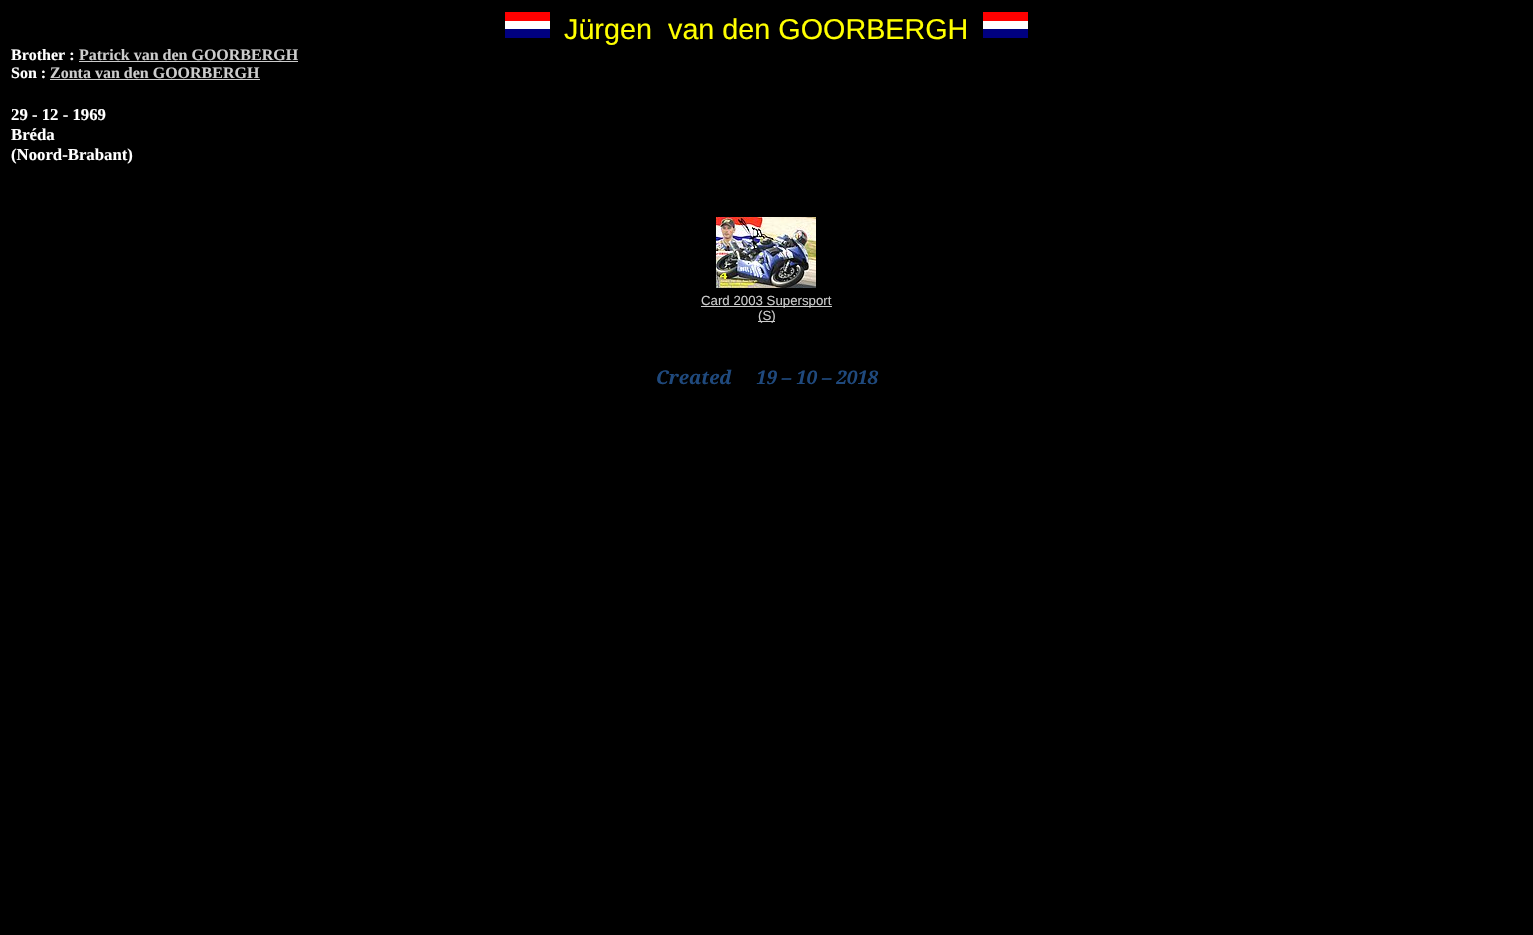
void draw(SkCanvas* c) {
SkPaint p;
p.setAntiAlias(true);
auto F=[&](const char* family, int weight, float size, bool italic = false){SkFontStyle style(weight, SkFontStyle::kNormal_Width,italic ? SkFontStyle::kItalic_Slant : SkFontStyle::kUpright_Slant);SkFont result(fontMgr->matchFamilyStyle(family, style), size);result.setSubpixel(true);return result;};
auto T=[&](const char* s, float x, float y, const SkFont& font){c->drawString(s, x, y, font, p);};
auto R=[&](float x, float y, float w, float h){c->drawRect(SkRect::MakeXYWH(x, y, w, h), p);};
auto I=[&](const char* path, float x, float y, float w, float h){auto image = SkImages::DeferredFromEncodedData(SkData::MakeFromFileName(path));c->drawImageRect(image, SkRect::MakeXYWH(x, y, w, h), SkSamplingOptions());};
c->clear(0xff000000);
I("1.png",505,12,45,26);
auto f1 = F("Liberation Sans",400,28.75);
p.setColor(0xffffff00);
T("Jürgen",564,39,f1);
T("van den GOORBERGH",668,39,f1);
I("1.png",983,12,45,26);
auto f2 = F("Liberation Serif",700,16);
p.setColor(0xffffffff);
T("Brother :",11,60,f2);
p.setColor(0xffcccccc);
T("Patrick van den GOORBERGH",79,60,f2);
R(79,61,219,1);
p.setColor(0xffffffff);
T("Son :",11,78,f2);
p.setColor(0xffcccccc);
T("Zonta van den GOORBERGH",50,78,f2);
R(50,79,210,1);
auto f3 = F("Liberation Serif",700,16.75);
p.setColor(0xffffffff);
T("29 - 12 - 1969",11,120,f3);
T("Bréda",11,140,f3);
T("(Noord-Brabant)",11,160,f3);
I("2.png",716,217,100,71);
p.setColor(0xffcccccc);
R(701,306,131,1);
auto f4 = F("Liberation Sans",400,13.25);
T("Card 2003 Supersport",701,305,f4);
R(758,321,17,1);
T("(S)",758,320,f4);
auto f5 = F("Noto Serif",700,18.75,true);
p.setColor(0xff1f497d);
T("Created",656,384,f5);
T("19 – 10 – 2018",756,384,f5);
}
